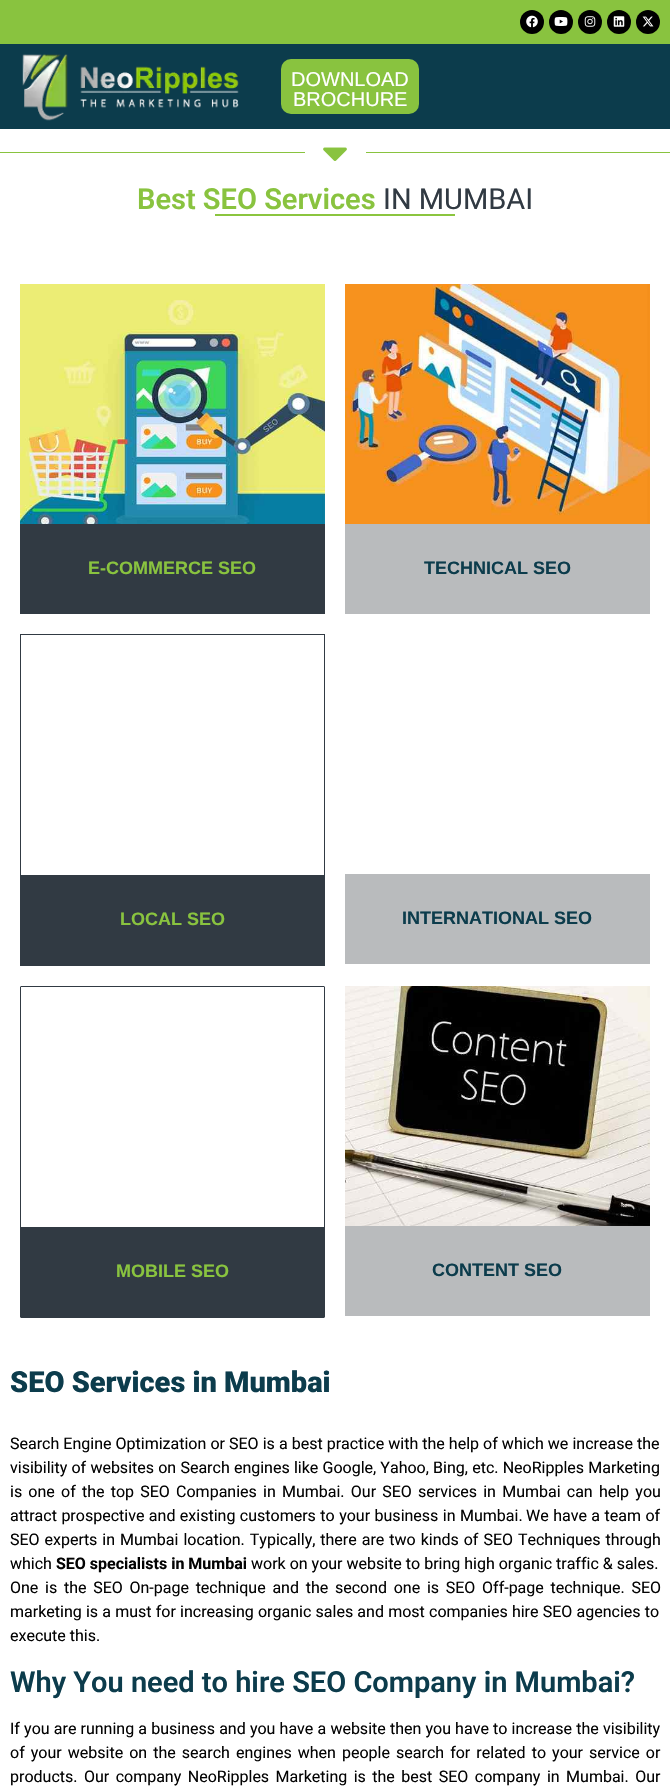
void draw(SkCanvas* c) {
SkPaint p;
p.setAntiAlias(true);
auto F=[&](const char* family, int weight, float size, bool italic = false){SkFontStyle style(weight, SkFontStyle::kNormal_Width,italic ? SkFontStyle::kItalic_Slant : SkFontStyle::kUpright_Slant);SkFont result(fontMgr->matchFamilyStyle(family, style), size);result.setSubpixel(true);return result;};
auto T=[&](const char* s, float x, float y, const SkFont& font){c->drawString(s, x, y, font, p);};
auto L=[&](const char* s, float x, float y, const SkFont& font, const SkPaint& ink, float letter, float word){std::vector<SkGlyphID> glyphs(font.countText(s, strlen(s), SkTextEncoding::kUTF8));std::vector<float> xs(glyphs.size());font.textToGlyphs(s, strlen(s), SkTextEncoding::kUTF8, glyphs);font.getXPos(glyphs, xs, x);float extra = 0;for (size_t i = 0; i < glyphs.size(); i++) {xs[i] += extra;extra += letter + word * (glyphs[i] == font.unicharToGlyph(' '));}c->drawTextBlob(SkTextBlob::MakeFromPosHGlyphs(glyphs, xs, y, font), 0, 0, ink);};
auto R=[&](float x, float y, float w, float h){c->drawRect(SkRect::MakeXYWH(x, y, w, h), p);};
auto Q=[&](float x, float y, float w, float h, float radius){c->drawRoundRect(SkRect::MakeXYWH(x, y, w, h), radius, radius, p);};
auto I=[&](const char* path, float x, float y, float w, float h){auto image = SkImages::DeferredFromEncodedData(SkData::MakeFromFileName(path));c->drawImageRect(image, SkRect::MakeXYWH(x, y, w, h), SkSamplingOptions());};
c->clear(0xffffffff);
p.setColor(0xff89c33f);
R(0,0,670,44);
p.setColor(0xff000000);
c->drawCircle(532,22,12,p);
I("1.png",526,15,12,13);
c->drawCircle(561,22,12,p);
I("2.png",554,17,14,9);
c->drawCircle(590,22,12,p);
I("3.png",584,16,12,11);
c->drawCircle(619,22,12,p);
I("4.png",613,16,12,11);
c->drawCircle(648,22,12,p);
I("5.png",642,16,12,11);
p.setColor(0xff0c3c4c);
R(0,44,670,85);
I("6.png",22,54,217,67);
p.setColor(0xff89c33f);
Q(281,59,138,55,10);
auto f1 = F("Liberation Sans",400,20);
p.setColor(0xffffffff);
T("DOWNLOAD",291,86,f1);
T("BROCHURE",293,106,f1);
p.setColor(0xff89c33f);
R(0,152,305,1);
I("7.png",323,147,24,14);
R(366,152,304,1);
auto f2 = F("Roboto",600,29);
T("Best SEO Services",137,209,f2);
auto f3 = F("Roboto",400,29);
p.setColor(0xff313a43);
T("IN MUMBAI",383,209,f3);
p.setColor(0xff8bc53f);
R(215,214,240,2);
I("8.png",20,284,305,240);
p.setColor(0xff313a43);
R(20,524,305,90);
auto f4 = F("Liberation Sans",700,18);
p.setColor(0xff89c33f);
T("E-COMMERCE SEO",88,574,f4);
I("9.png",345,284,305,240);
p.setColor(0xffb9bbbd);
R(345,524,305,90);
p.setColor(0xff0c3c4c);
T("TECHNICAL SEO",424,574,f4);
p.setStroke(true);
p.setStrokeWidth(1);
p.setColor(0xff313a43);
c->drawRect(SkRect::MakeXYWH(20.5,634.5,304,331),p);
p.setStroke(false);
R(21,875,303,90);
p.setColor(0xff89c33f);
T("LOCAL SEO",120,925,f4);
p.setColor(0xffb9bbbd);
R(345,874,305,90);
p.setColor(0xff0c3c4c);
T("INTERNATIONAL SEO",402,924,f4);
p.setStroke(true);
p.setColor(0xff313a43);
c->drawRoundRect(SkRect::MakeXYWH(20.5,986.5,304,331),.5,.5,p);
p.setStroke(false);
R(21,1227,303,90);
p.setColor(0xff89c33f);
T("MOBILE SEO",116,1277,f4);
I("10.png",345,986,305,240);
p.setColor(0xffb9bbbd);
R(345,1226,305,90);
p.setColor(0xff0c3c4c);
T("CONTENT SEO",432,1276,f4);
auto f5 = F("Roboto",900,29);
T("SEO Services in Mumbai",10,1392,f5);
auto f6 = F("Roboto",400,16);
p.setColor(0xff030303);
L("Search Engine Optimization or SEO is a best practice with the help of which we increase the",10,1449,f6,p,0,.1);
L("visibility of websites on Search engines like Google, Yahoo, Bing, etc. NeoRipples Marketing",10,1473,f6,p,0,.25);
L("is one of the top SEO Companies in Mumbai. Our SEO services in Mumbai can help you",10,1497,f6,p,0,2.25);
L("attract prospective and existing customers to your business in Mumbai.",10,1521,f6,p,0,.5);
L("We have a team of",526,1521,f6,p,0,.5);
L("SEO experts in Mumbai location. Typically, there are two kinds of SEO Techniques through",10,1545,f6,p,0,1);
T("which",10,1569,f6);
auto f7 = F("Roboto",700,16);
T("SEO specialists in Mumbai",56,1569,f7);
T("work on your website to bring high organic traffic & sales.",251,1569,f6);
L("One is the SEO On-page technique and the second one is SEO Off-page technique. SEO",10,1593,f6,p,0,2.75);
L("marketing is a must for increasing organic sales and most companies hire SEO agencies to",10,1617,f6,p,0,.25);
T("execute this.",10,1641,f6);
p.setColor(0xff0c3c4c);
T("Why You need to hire SEO Company in Mumbai?",10,1692,f2);
p.setColor(0xff030303);
L("If you are running a business and you have a website then you have to increase the visibility",10,1734,f6,p,0,.2);
L("of your website on the search engines when people search for related to your service or",10,1758,f6,p,0,2.1);
L("products. Our company NeoRipples Marketing is the best SEO company in Mumbai. Our",10,1782,f6,p,0,2.5);
}
